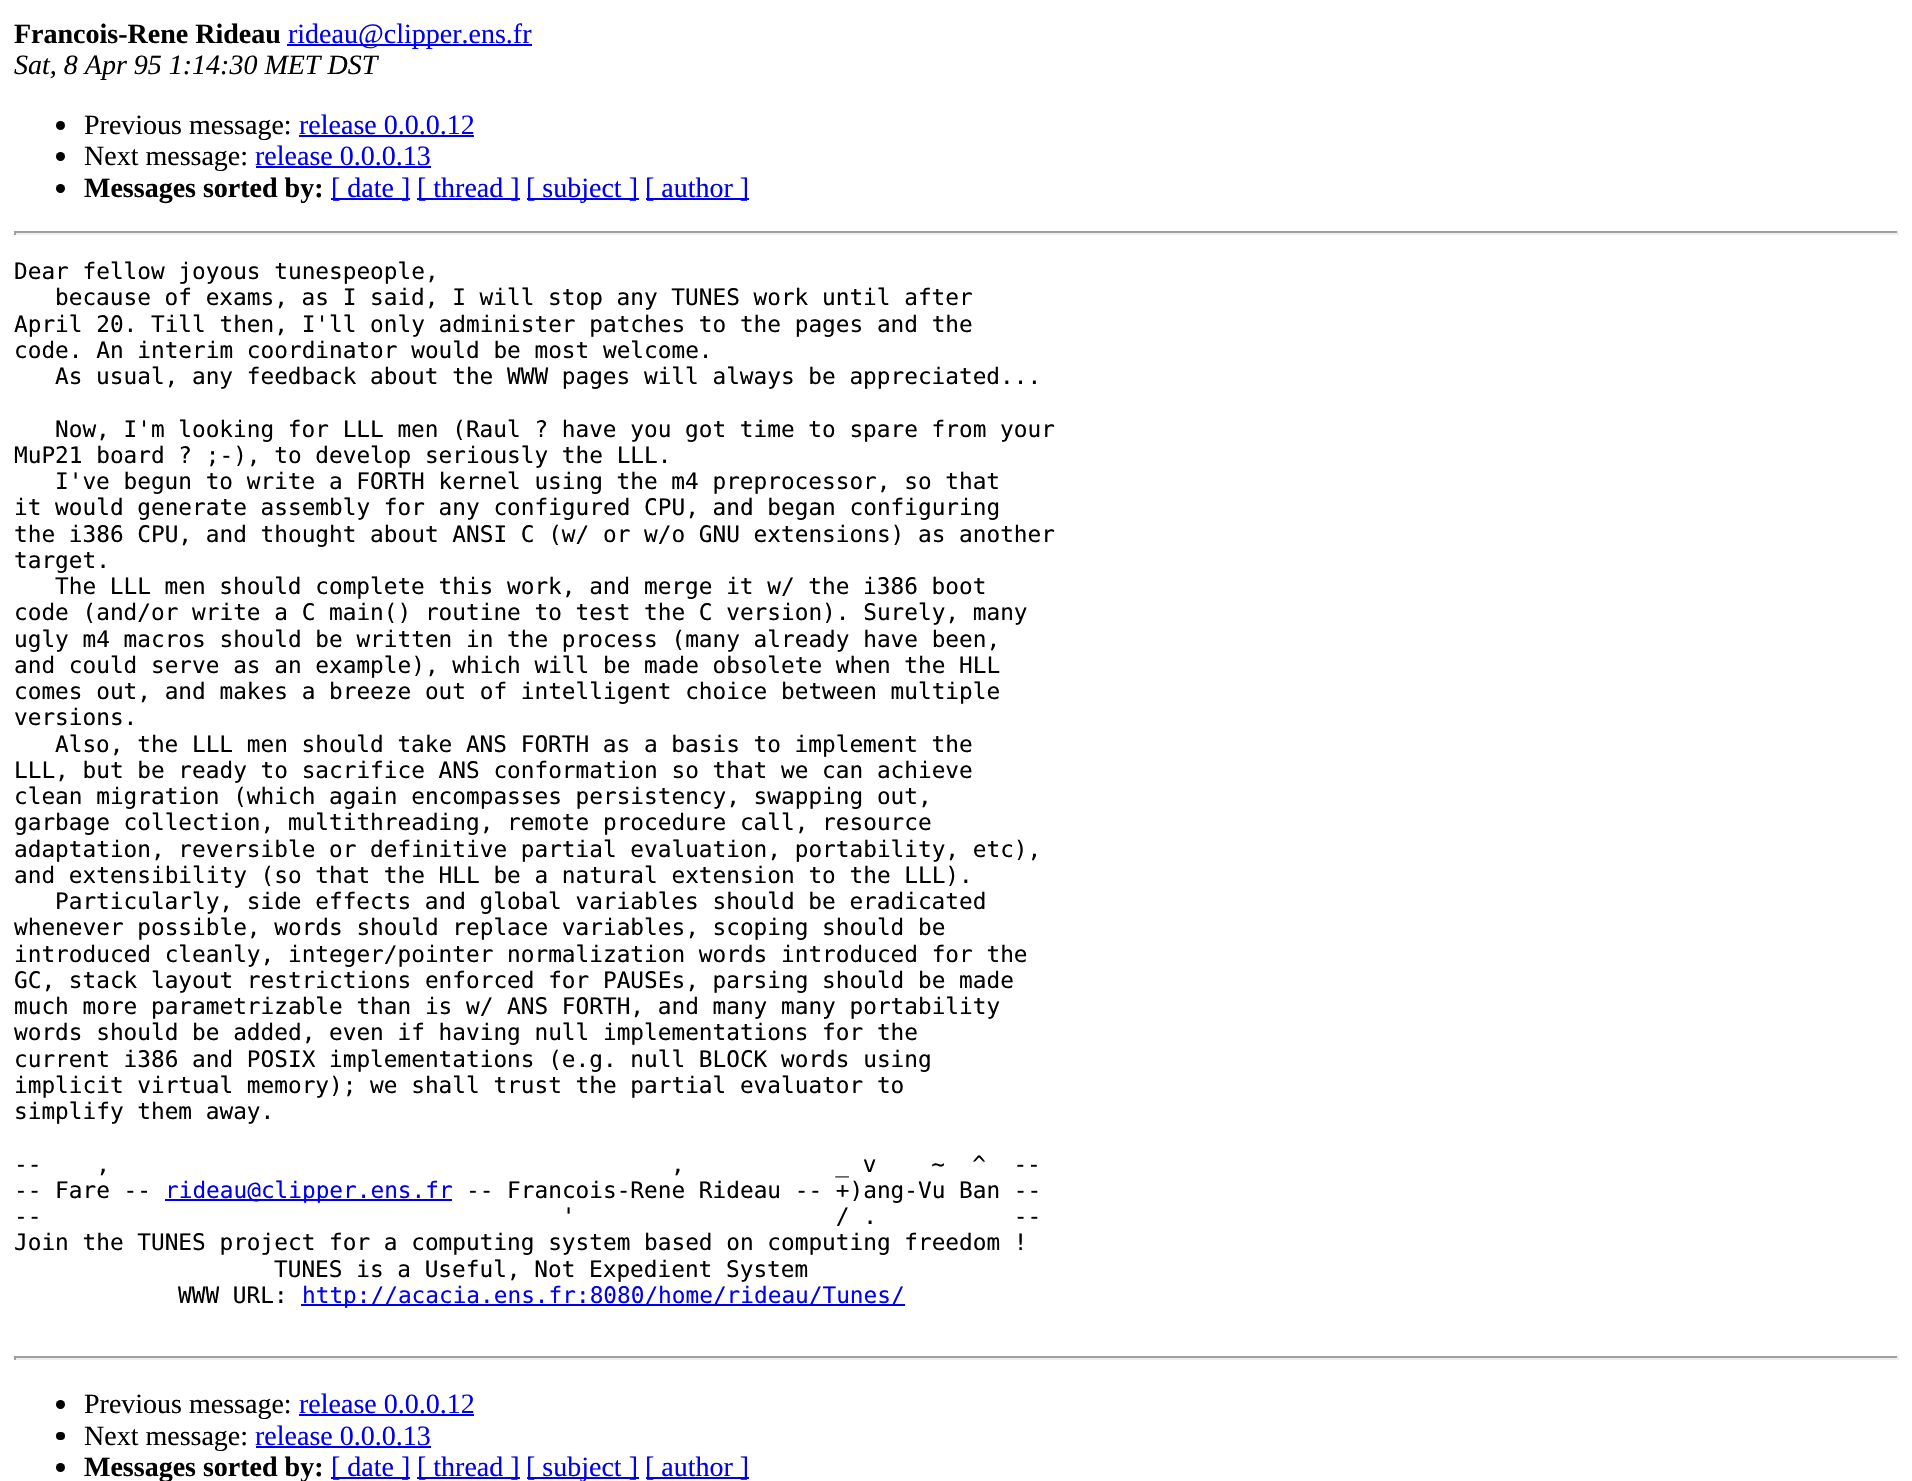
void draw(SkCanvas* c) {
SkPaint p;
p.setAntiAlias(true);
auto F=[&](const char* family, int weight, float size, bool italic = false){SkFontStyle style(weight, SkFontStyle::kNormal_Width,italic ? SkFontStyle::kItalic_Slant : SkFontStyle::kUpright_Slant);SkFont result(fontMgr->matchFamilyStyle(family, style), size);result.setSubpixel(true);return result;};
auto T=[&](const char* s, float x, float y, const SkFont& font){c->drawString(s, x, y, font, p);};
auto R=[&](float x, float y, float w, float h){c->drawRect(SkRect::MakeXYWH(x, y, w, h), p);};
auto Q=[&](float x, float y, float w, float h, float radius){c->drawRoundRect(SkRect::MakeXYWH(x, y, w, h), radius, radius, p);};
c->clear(0xffffffff);
auto f1 = F("Liberation Serif",700,28);
p.setColor(0xff000000);
T("Francois-Rene Rideau",14,43,f1);
p.setColor(0xff0000ee);
R(287,44,245,2);
auto f2 = F("Liberation Serif",400,28);
T("rideau@clipper.ens.fr",288,43,f2);
auto f3 = F("Liberation Serif",400,28,true);
p.setColor(0xff000000);
T("Sat, 8 Apr 95 1:14:30 MET DST",14,74,f3);
c->drawCircle(60.5,125.5,4.5,p);
T("Previous message:",84,134,f2);
p.setColor(0xff0000ee);
T("release 0.0.0.12",299,134,f2);
R(299,135,175,2);
p.setColor(0xff000000);
c->drawCircle(60.5,156.5,4.5,p);
T("Next message:",84,165,f2);
p.setColor(0xff0000ee);
T("release 0.0.0.13",255,165,f2);
R(256,166,175,2);
p.setColor(0xff000000);
c->drawCircle(60.5,188.5,4.5,p);
T("Messages sorted by:",84,197,f1);
p.setColor(0xff0000ee);
R(331,198,79,2);
T("[ date ]",331,197,f2);
R(417,198,103,2);
T("[ thread ]",417,197,f2);
R(527,198,112,2);
T("[ subject ]",526,197,f2);
R(646,198,103,2);
T("[ author ]",645,197,f2);
p.setColor(0xff9f9f9f);
R(14,231,1885,2);
p.setColor(0xffeeeeee);
R(1897,231,2,4);
R(14,233,1885,2);
p.setColor(0xff9f9f9f);
R(14,231,2,4);
auto f4 = F("DejaVu Sans Mono",400,22.75);
p.setColor(0xff000000);
T("Dear fellow joyous tunespeople,",14,279,f4);
T("because of exams, as I said, I will stop any TUNES work until after",55,305,f4);
T("April 20. Till then, I'll only administer patches to the pages and the",14,332,f4);
T("code. An interim coordinator would be most welcome.",14,358,f4);
T("As usual, any feedback about the WWW pages will always be appreciated...",55,384,f4);
T("Now, I'm looking for LLL men (Raul ? have you got time to spare from your",55,437,f4);
T("MuP21 board ? ;-), to develop seriously the LLL.",14,463,f4);
T("I've begun to write a FORTH kernel using the m4 preprocessor, so that",55,489,f4);
T("it would generate assembly for any configured CPU, and began configuring",14,515,f4);
T("the i386 CPU, and thought about ANSI C (w/ or w/o GNU extensions) as another",14,542,f4);
T("target.",14,568,f4);
T("The LLL men should complete this work, and merge it w/ the i386 boot",55,594,f4);
T("code (and/or write a C main() routine to test the C version). Surely, many",14,620,f4);
T("ugly m4 macros should be written in the process (many already have been,",14,647,f4);
T("and could serve as an example), which will be made obsolete when the HLL",14,673,f4);
T("comes out, and makes a breeze out of intelligent choice between multiple",14,699,f4);
T("versions.",14,725,f4);
T("Also, the LLL men should take ANS FORTH as a basis to implement the",55,752,f4);
T("LLL, but be ready to sacrifice ANS conformation so that we can achieve",14,778,f4);
T("clean migration (which again encompasses persistency, swapping out,",14,804,f4);
T("garbage collection, multithreading, remote procedure call, resource",14,830,f4);
T("adaptation, reversible or definitive partial evaluation, portability, etc),",14,857,f4);
T("and extensibility (so that the HLL be a natural extension to the LLL).",14,883,f4);
T("Particularly, side effects and global variables should be eradicated",55,909,f4);
T("whenever possible, words should replace variables, scoping should be",14,935,f4);
T("introduced cleanly, integer/pointer normalization words introduced for the",14,962,f4);
T("GC, stack layout restrictions enforced for PAUSEs, parsing should be made",14,988,f4);
T("much more parametrizable than is w/ ANS FORTH, and many many portability",14,1014,f4);
T("words should be added, even if having null implementations for the",14,1040,f4);
T("current i386 and POSIX implementations (e.g. null BLOCK words using",14,1067,f4);
T("implicit virtual memory); we shall trust the partial evaluator to",14,1093,f4);
T("simplify them away.",14,1119,f4);
T("--    ,",14,1172,f4);
T(",           _ v    ~  ^  --",671,1172,f4);
T("-- Fare --",14,1198,f4);
p.setColor(0xff0000ee);
R(165,1199,287,2);
T("rideau@clipper.ens.fr",165,1198,f4);
p.setColor(0xff000000);
T("-- Francois-Rene Rideau -- +)ang-Vu Ban --",466,1198,f4);
T("--                                      '                   / .          --",14,1224,f4);
T("Join the TUNES project for a computing system based on computing freedom !",14,1250,f4);
T("TUNES is a Useful, Not Expedient System",274,1277,f4);
T("WWW URL:",178,1303,f4);
p.setColor(0xff0000ee);
R(301,1304,604,2);
T("http://acacia.ens.fr:8080/home/rideau/Tunes/",302,1303,f4);
p.setColor(0xff9f9f9f);
R(14,1356,1885,2);
p.setColor(0xffeeeeee);
R(1897,1356,2,4);
R(14,1358,1885,2);
p.setColor(0xff9f9f9f);
R(14,1356,2,4);
p.setColor(0xff000000);
c->drawCircle(60.5,1404.5,4.5,p);
T("Previous message:",84,1413,f2);
p.setColor(0xff0000ee);
T("release 0.0.0.12",299,1413,f2);
R(299,1414,175,2);
p.setColor(0xff000000);
Q(56,1432,9,8,4);
T("Next message:",84,1445,f2);
p.setColor(0xff0000ee);
T("release 0.0.0.13",255,1445,f2);
R(256,1446,175,2);
p.setColor(0xff000000);
c->drawCircle(60.5,1467.5,4.5,p);
T("Messages sorted by:",84,1476,f1);
p.setColor(0xff0000ee);
R(331,1477,79,2);
T("[ date ]",331,1476,f2);
R(417,1477,103,2);
T("[ thread ]",417,1476,f2);
R(527,1477,112,2);
T("[ subject ]",526,1476,f2);
R(646,1477,103,2);
T("[ author ]",645,1476,f2);
}
